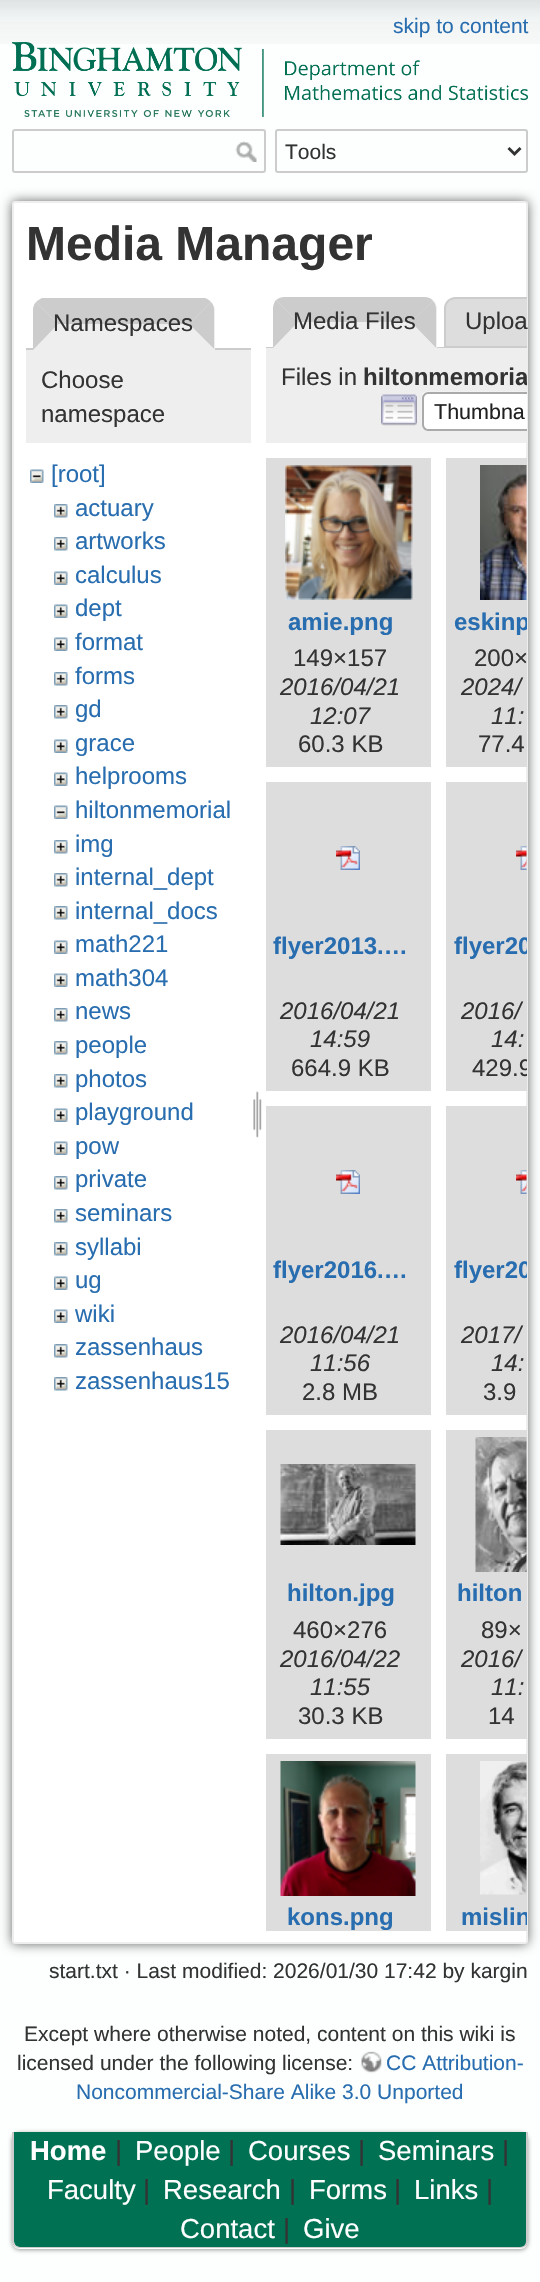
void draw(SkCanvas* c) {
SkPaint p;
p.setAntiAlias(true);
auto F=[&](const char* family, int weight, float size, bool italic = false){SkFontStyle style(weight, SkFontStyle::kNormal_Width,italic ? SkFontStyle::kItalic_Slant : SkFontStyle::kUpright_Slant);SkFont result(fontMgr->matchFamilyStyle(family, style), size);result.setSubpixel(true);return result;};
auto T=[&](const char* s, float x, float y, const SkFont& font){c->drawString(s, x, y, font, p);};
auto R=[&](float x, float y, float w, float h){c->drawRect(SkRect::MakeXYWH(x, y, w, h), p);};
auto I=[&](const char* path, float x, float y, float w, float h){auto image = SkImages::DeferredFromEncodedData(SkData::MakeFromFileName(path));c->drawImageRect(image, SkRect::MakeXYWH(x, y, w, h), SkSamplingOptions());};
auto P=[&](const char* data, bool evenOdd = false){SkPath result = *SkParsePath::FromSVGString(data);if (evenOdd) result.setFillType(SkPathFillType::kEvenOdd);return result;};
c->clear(0xfffdfffe);
I("1.png",0,0,540,44);
auto f1 = F("Liberation Sans",400,21);
p.setColor(0xff286daf);
T("skip to content",393,33,f1);
I("2.png",12,42,516,75);
p.setStroke(true);
p.setStrokeWidth(2);
p.setColor(0xffcccccc);
c->drawRoundRect(SkRect::MakeXYWH(13,130,252,42),2,2,p);
I("3.png",235,141,22,21);
c->drawRoundRect(SkRect::MakeXYWH(276,130,251,42),2,2,p);
p.setStrokeWidth(3);
p.setColor(0xff333333);
c->drawPath(P("M508.5 148l6 6l6-6"),p);
p.setStroke(false);
T("Tools",285,159,f1);
p.setColor(0xff666666);
p.setMaskFilter(SkMaskFilter::MakeBlur(kNormal_SkBlurStyle, 6));
c->drawRoundRect(SkRect::MakeXYWH(12,201,516,1743),3,3,p);
p.setMaskFilter(nullptr);
p.setColor(0xffffffff);
c->drawRoundRect(SkRect::MakeXYWH(13,202,514,1741),2,2,p);
p.setStroke(true);
p.setStrokeWidth(2);
p.setColor(0xffeeeeee);
c->drawRoundRect(SkRect::MakeXYWH(13,202,514,1741),2,2,p);
auto f2 = F("Liberation Sans",700,48);
p.setStroke(false);
p.setColor(0xff333333);
T("Media Manager",26,260,f2);
p.setColor(0xffcccccc);
R(26,348,225,2);
p.setColor(0xffeeeeee);
c->drawPath(P("M45 299h158c6.5 0 12 5.5 12 12v39h-182v-39c0-6.5 5.5-12 12-12z"),p);
p.setColor(0xffcccccc);
c->drawPath(P("M205 298h-163c-2 1-4 2-6 4l22 22h131l22-22c-2-2-3-3-6-4z"),p);
c->drawPath(P("M211 302l-22 22l25 25v-39c0-3-1-6-3-8z"),p);
p.setColor(0xffeeeeee);
c->drawPath(P("M214 349l-25-25h-131l-25 26h181z"),p);
p.setColor(0xffcccccc);
c->drawPath(P("M33 350l25-26l-22-22c-2 2-3 5-3 8z"),p);
auto f3 = F("Liberation Sans",400,24);
p.setColor(0xff333333);
T("Namespaces",53,331,f3);
p.setColor(0xffeeeeee);
R(26,350,225,93);
p.setColor(0xff333333);
T("Choose",41,388,f3);
T("namespace",41,422,f3);
I("4.png",30,469,14,14);
p.setColor(0xff286daf);
T("[root]",51,482,f3);
I("5.png",54,504,14,14);
T("actuary",75,516,f3);
I("5.png",54,537,14,14);
T("artworks",75,549,f3);
I("6.png",54,571,14,14);
T("calculus",75,583,f3);
I("6.png",54,604,14,14);
T("dept",75,616,f3);
I("6.png",54,637,14,14);
T("format",75,650,f3);
I("5.png",54,672,14,14);
T("forms",75,684,f3);
I("5.png",54,705,14,14);
T("gd",75,717,f3);
I("6.png",54,739,14,14);
T("grace",75,751,f3);
I("6.png",54,772,14,14);
T("helprooms",75,784,f3);
I("4.png",54,805,14,14);
T("hiltonmemorial",75,818,f3);
I("5.png",54,840,14,14);
T("img",75,852,f3);
I("5.png",54,873,14,14);
T("internal_dept",75,885,f3);
I("5.png",54,906,14,14);
T("internal_docs",75,919,f3);
I("6.png",54,940,14,14);
T("math221",75,952,f3);
I("6.png",54,973,14,14);
T("math304",75,986,f3);
I("5.png",54,1008,14,14);
T("news",75,1019,f3);
I("5.png",54,1041,14,14);
T("people",75,1053,f3);
I("5.png",54,1074,14,14);
T("photos",75,1087,f3);
I("6.png",54,1108,14,14);
T("playground",75,1120,f3);
I("6.png",54,1141,14,14);
T("pow",75,1154,f3);
I("5.png",54,1176,14,14);
T("private",75,1187,f3);
I("5.png",54,1209,14,14);
T("seminars",75,1221,f3);
I("5.png",54,1242,14,14);
T("syllabi",75,1255,f3);
I("6.png",54,1276,14,14);
T("ug",75,1288,f3);
I("6.png",54,1309,14,14);
T("wiki",75,1322,f3);
I("5.png",54,1344,14,14);
T("zassenhaus",75,1355,f3);
I("5.png",54,1377,14,14);
T("zassenhaus15",75,1389,f3);
I("7.png",253,1090,9,48);
p.setColor(0xffcccccc);
R(266,347,178,1);
p.setColor(0xffeeeeee);
c->drawPath(P("M285 297h140c6.5 0 12 5.5 12 12v39h-164v-39c0-6.5 5.5-12 12-12z"),p);
p.setColor(0xffcccccc);
c->drawPath(P("M285 297h139c4 0 7 1 9 4l-22 21h-113l-22-22c2-2 6-3 9-3z"),p);
c->drawPath(P("M433 301l-22 21l25 26v-39c0-3-1-6-3-8z"),p);
p.setColor(0xffeeeeee);
c->drawPath(P("M436 348l-25-26h-113l-25 26z"),p);
p.setColor(0xffcccccc);
c->drawPath(P("M273 348v-39c0-3 1-7 3-9l22 22z"),p);
p.setColor(0xff333333);
T("Media Files",293,329,f3);
p.setColor(0xffdddddd);
c->drawPath(P("M456 297h71v51h-83v-39c0-6.5 5.5-12 12-12z"),p);
p.setColor(0xffcccccc);
c->drawPath(P("M456 297c-7 0-12 5-12 12v39h83v-2h-81v-37c0-6 4-10 10-10h71v-2z"),p);
p.setColor(0xff333333);
T("Uploa",465,329,f3);
p.setColor(0xffeeeeee);
R(266,348,260,95);
p.setColor(0xff333333);
T("Files in",281,385,f3);
c->save();
c->clipPath(P("M15.5 203h510c1 0 1.5 .5 1.5 1.5v1737c0 1-.5 1.5-1.5 1.5h-510c-1 0-1.5-.5-1.5-1.5v-1737c0-1 .5-1.5 1.5-1.5z"),true);
auto f4 = F("Liberation Sans",700,24);
T("hiltonmemoria",363,385,f4);
c->restore();
I("8.png",381,394,36,32);
p.setColor(0xffffffff);
c->drawPath(P("M428 392h99v39h-99c-3.5 0-6-2.5-6-6v-27c0-3.5 2.5-6 6-6z"),p);
I("9.png",421,391,105,37);
p.setColor(0xffaaaaaa);
c->drawPath(P("M428 392c-3 0-6 3-6 6v27c0 3 3 6 6 6h99v-2h-99c-2 0-4-2-4-4v-27c0-2 2-4 4-4h99v-2z"),p);
auto f5 = F("Liberation Sans",400,21.5);
p.setColor(0xff212121);
T("Thumbna",434,419,f5);
p.setColor(0xffdddddd);
R(266,458,165,309);
I("10.png",285,465,128,135);
p.setColor(0xff286daf);
T("amie.png",288,630,f4);
p.setColor(0xff333333);
T("149×157",293,666,f3);
auto f6 = F("Liberation Sans",400,24,true);
T("2016/04/21",280,695,f6);
T("12:07",310,724,f6);
T("60.3 KB",298,752,f3);
p.setColor(0xffdddddd);
R(446,458,81,309);
I("11.png",480,465,47,135);
c->save();
c->clipPath(P("M15.5 203h510c1 0 1.5 .5 1.5 1.5v1737c0 1-.5 1.5-1.5 1.5h-510c-1 0-1.5-.5-1.5-1.5v-1737c0-1 .5-1.5 1.5-1.5z"),true);
p.setColor(0xff286daf);
T("eskinp",454,630,f4);
c->restore();
p.setColor(0xff333333);
T("200×",474,666,f3);
T("2024/",461,695,f6);
T("11:",491,724,f6);
T("77.4",478,752,f3);
p.setColor(0xffdddddd);
R(266,782,165,309);
I("12.png",336,846,24,24);
p.setColor(0xff286daf);
T("flyer2013.…",273,954,f4);
p.setColor(0xff333333);
T("2016/04/21",280,1019,f6);
T("14:59",310,1047,f6);
T("664.9 KB",291,1076,f3);
p.setColor(0xffdddddd);
R(446,782,81,309);
I("13.png",516,846,11,24);
c->save();
c->clipPath(P("M15.5 203h510c1 0 1.5 .5 1.5 1.5v1737c0 1-.5 1.5-1.5 1.5h-510c-1 0-1.5-.5-1.5-1.5v-1737c0-1 .5-1.5 1.5-1.5z"),true);
p.setColor(0xff286daf);
T("flyer20",454,954,f4);
c->restore();
p.setColor(0xff333333);
T("2016/",461,1019,f6);
T("14:",491,1047,f6);
c->save();
c->clipPath(P("M15.5 203h510c1 0 1.5 .5 1.5 1.5v1737c0 1-.5 1.5-1.5 1.5h-510c-1 0-1.5-.5-1.5-1.5v-1737c0-1 .5-1.5 1.5-1.5z"),true);
T("429.9",472,1076,f3);
c->restore();
p.setColor(0xffdddddd);
R(266,1106,165,309);
I("12.png",336,1170,24,24);
p.setColor(0xff286daf);
T("flyer2016.…",273,1278,f4);
p.setColor(0xff333333);
T("2016/04/21",280,1343,f6);
T("11:56",310,1371,f6);
T("2.8 MB",302,1400,f3);
p.setColor(0xffdddddd);
R(446,1106,81,309);
I("13.png",516,1170,11,24);
c->save();
c->clipPath(P("M15.5 203h510c1 0 1.5 .5 1.5 1.5v1737c0 1-.5 1.5-1.5 1.5h-510c-1 0-1.5-.5-1.5-1.5v-1737c0-1 .5-1.5 1.5-1.5z"),true);
p.setColor(0xff286daf);
T("flyer20",454,1278,f4);
c->restore();
p.setColor(0xff333333);
T("2017/",461,1343,f6);
T("14:",491,1371,f6);
T("3.9",483,1400,f3);
p.setColor(0xffdddddd);
R(266,1430,165,309);
I("14.png",280,1464,136,81);
p.setColor(0xff286daf);
T("hilton.jpg",287,1601,f4);
p.setColor(0xff333333);
T("460×276",293,1638,f3);
T("2016/04/22",280,1667,f6);
T("11:55",310,1695,f6);
T("30.3 KB",298,1724,f3);
p.setColor(0xffdddddd);
R(446,1430,81,309);
I("15.png",475,1437,52,135);
p.setColor(0xff286daf);
T("hilton",457,1601,f4);
p.setColor(0xff333333);
T("89×",481,1638,f3);
T("2016/",461,1667,f6);
T("11:",491,1695,f6);
T("14",488,1724,f3);
p.setColor(0xffdddddd);
R(266,1754,165,177);
I("16.png",280,1761,136,135);
p.setColor(0xff286daf);
T("kons.png",287,1925,f4);
p.setColor(0xffdddddd);
R(446,1754,81,177);
I("17.png",480,1761,47,134);
c->save();
c->clipPath(P("M15.5 203h510c1 0 1.5 .5 1.5 1.5v1737c0 1-.5 1.5-1.5 1.5h-510c-1 0-1.5-.5-1.5-1.5v-1737c0-1 .5-1.5 1.5-1.5z"),true);
p.setColor(0xff286daf);
T("mislin",461,1925,f4);
c->restore();
p.setColor(0xff333333);
T("start.txt · Last modified: 2026/01/30 17:42 by kargin",49,1978,f1);
T("Except where otherwise noted, content on this wiki is",24,2041,f1);
T("licensed under the following license:",17,2070,f1);
I("18.png",361,2051,21,23);
p.setColor(0xff286daf);
T("CC Attribution-",386,2070,f1);
T("Noncommercial-Share Alike 3.0 Unported",76,2099,f1);
c->save();
c->clipPath(P("M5 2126h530v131h-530zm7 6h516v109c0 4.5-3.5 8-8 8h-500c-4.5 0-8-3.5-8-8z",true),true);
p.setColor(0xff999999);
p.setMaskFilter(SkMaskFilter::MakeBlur(kNormal_SkBlurStyle, 2));
c->drawRoundRect(SkRect::MakeXYWH(12,2133,516,117),8,8,p);
p.setMaskFilter(nullptr);
c->restore();
p.setColor(0xff007153);
c->drawPath(P("M14 2132h513v109c0 3.5-2.5 6-6 6h-501c-3.5 0-6-2.5-6-6z"),p);
p.setColor(0xffcccccc);
c->drawPath(P("M12 2132h516v109c0 4-3 7-8 7h-500c-5 0-8-3-8-7zm2 0h512v109c0 3-2 6-6 6h-500c-4 0-6-3-6-6z",true),p);
auto f7 = F("Liberation Sans",700,27.5);
p.setColor(0xffffffff);
T("Home",30,2160,f7);
auto f8 = F("Liberation Sans",400,27.5);
p.setColor(0xff333333);
T("|",115,2160,f8);
p.setColor(0xffffffff);
T("People",135,2160,f8);
p.setColor(0xff333333);
T("|",228,2160,f8);
p.setColor(0xffffffff);
T("Courses",248,2160,f8);
p.setColor(0xff333333);
T("|",358,2160,f8);
p.setColor(0xffffffff);
T("Seminars",378,2160,f8);
p.setColor(0xff333333);
T("|",502,2160,f8);
p.setColor(0xffffffff);
T("Faculty",47,2199,f8);
p.setColor(0xff333333);
T("|",143,2199,f8);
p.setColor(0xffffffff);
T("Research",163,2199,f8);
p.setColor(0xff333333);
T("|",289,2199,f8);
p.setColor(0xffffffff);
T("Forms",309,2199,f8);
p.setColor(0xff333333);
T("|",394,2199,f8);
p.setColor(0xffffffff);
T("Links",414,2199,f8);
p.setColor(0xff333333);
T("|",486,2199,f8);
p.setColor(0xffffffff);
T("Contact",180,2238,f8);
p.setColor(0xff333333);
T("|",283,2238,f8);
p.setColor(0xffffffff);
T("Give",303,2238,f8);
}
